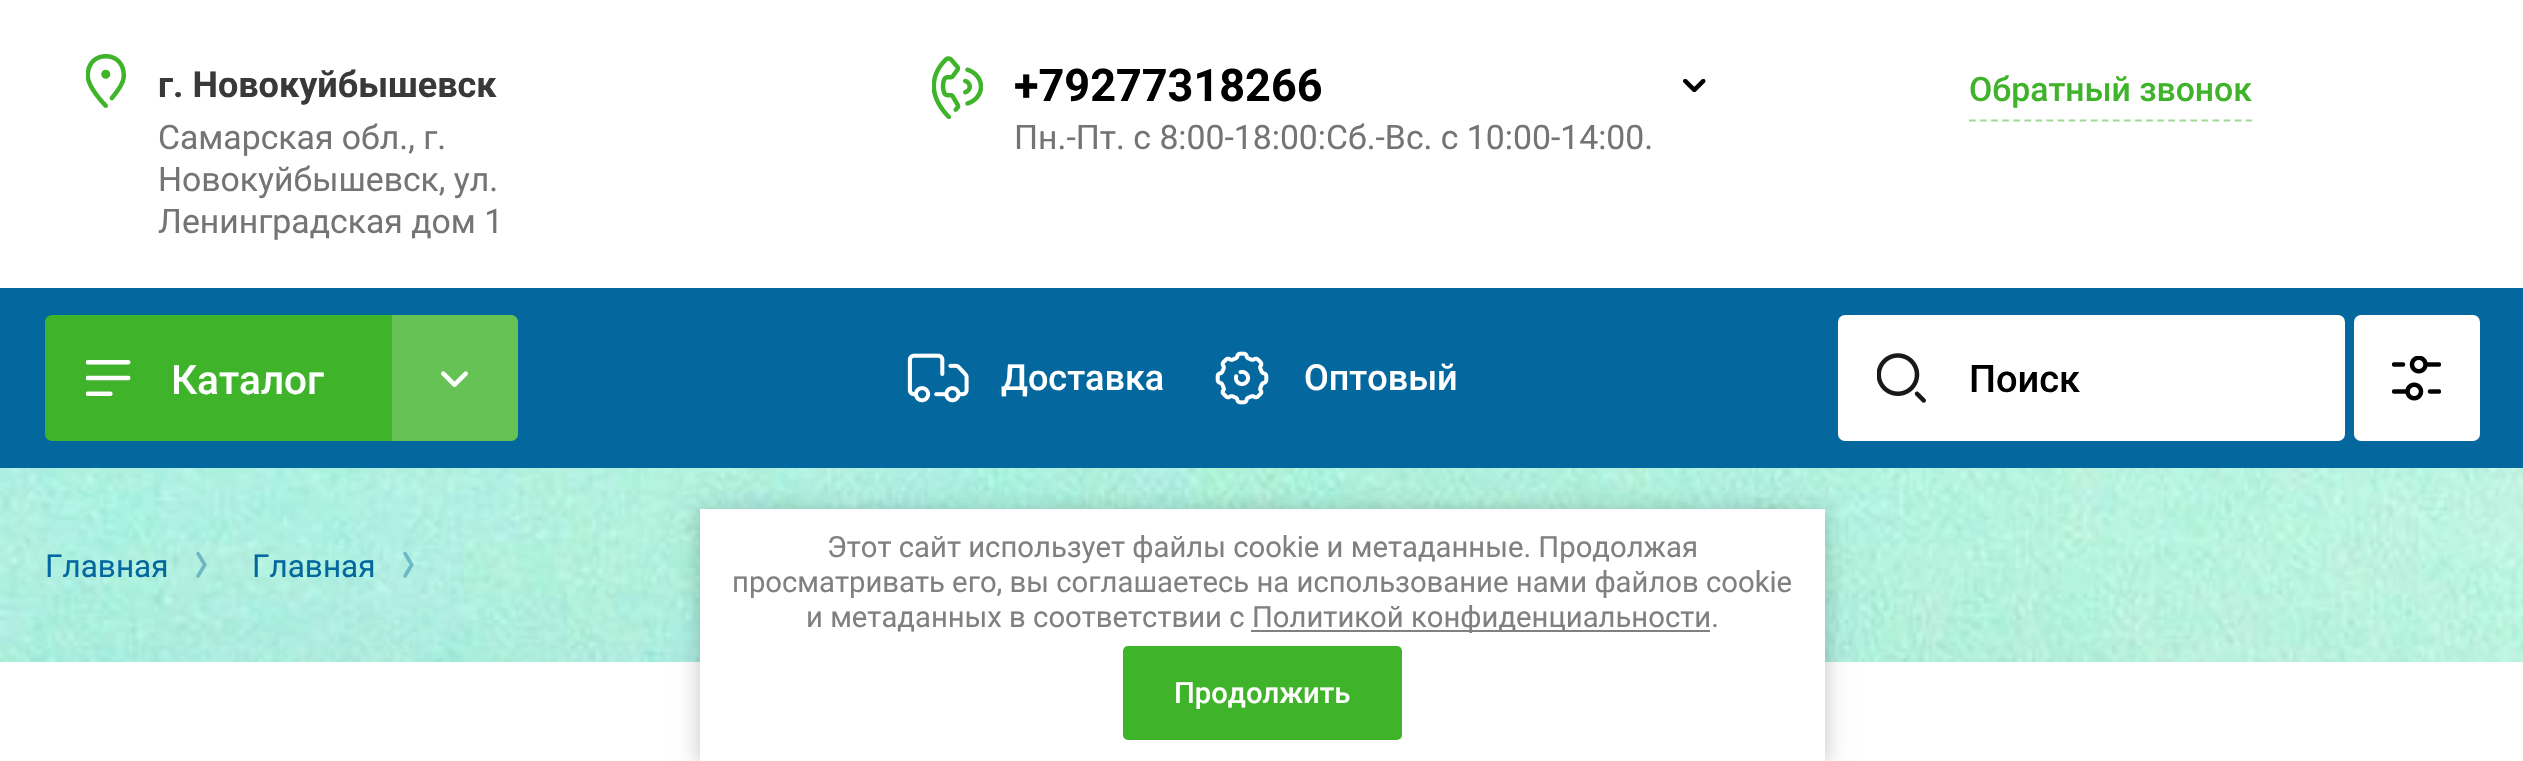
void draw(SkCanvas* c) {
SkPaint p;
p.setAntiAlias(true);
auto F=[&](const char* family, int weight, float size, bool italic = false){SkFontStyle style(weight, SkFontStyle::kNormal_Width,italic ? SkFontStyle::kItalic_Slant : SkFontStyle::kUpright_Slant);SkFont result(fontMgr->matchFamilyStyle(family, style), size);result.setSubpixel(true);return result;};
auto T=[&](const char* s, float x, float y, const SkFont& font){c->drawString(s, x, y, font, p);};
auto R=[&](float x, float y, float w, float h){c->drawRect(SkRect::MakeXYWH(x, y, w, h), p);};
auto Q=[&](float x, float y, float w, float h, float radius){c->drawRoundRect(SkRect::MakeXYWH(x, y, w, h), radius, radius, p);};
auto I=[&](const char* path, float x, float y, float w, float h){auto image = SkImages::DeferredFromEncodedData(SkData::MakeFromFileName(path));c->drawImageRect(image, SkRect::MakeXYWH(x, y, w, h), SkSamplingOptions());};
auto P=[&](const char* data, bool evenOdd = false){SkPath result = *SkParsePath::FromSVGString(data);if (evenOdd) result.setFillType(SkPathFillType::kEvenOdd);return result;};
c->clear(0xffffffff);
I("1.png",86,54,40,54);
auto f1 = F("Roboto",700,36);
p.setColor(0xff393939);
T("г. Новокуйбышевск",158,97,f1);
auto f2 = F("Roboto",400,33.75);
p.setColor(0xff747474);
T("Самарская обл., г.",158,149,f2);
T("Новокуйбышевск, ул.",158,191,f2);
T("Ленинградская дом 1",158,233,f2);
I("2.png",932,56,51,63);
auto f3 = F("Roboto",700,45);
p.setColor(0xff000000);
T("+79277318266",1014,101,f3);
I("3.png",1683,79,23,13);
p.setColor(0xff747474);
T("Пн.-Пт. с 8:00-18:00:Сб.-Вс. с 10:00-14:00.",1014,149,f2);
p.setStroke(true);
p.setStrokeWidth(2.2);
p.setColor(0xff9fd995);
p.setPathEffect(SkDashPathEffect::Make({{6.75f,4.32f}}, 0));
c->drawPath(P("M1969 120.5h283"),p);
p.setPathEffect(nullptr);
auto f4 = F("Roboto",500,33.75);
p.setStroke(false);
p.setColor(0xff3fb32a);
T("Обратный звонок",1969,101,f4);
I("10.png",0,468,2523,194);
I("11.png",196,551,11,27);
I("12.png",403,551,11,27);
p.setColor(0x14000000);
p.setMaskFilter(SkMaskFilter::MakeBlur(kNormal_SkBlurStyle, 112.5));
c->drawRect(SkRect::MakeXYWH(0,729,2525,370),p);
p.setMaskFilter(nullptr);
p.setColor(0xff04679e);
R(0,288,2523,180);
p.setColor(0xff3fb32a);
Q(45,315,473,126,7);
I("4.png",86,360,45,36);
auto f5 = F("Roboto",500,40.5);
p.setColor(0xffffffff);
T("Каталог",171,394,f5);
p.setColor(0x33ffffff);
c->drawPath(P("M392 315h119c4 0 7 3 7 7v112c0 4-3 7-7 7h-119z"),p);
I("5.png",441,371,27,16);
I("6.png",907,353,62,50);
auto f6 = F("Roboto",500,36);
p.setColor(0xffffffff);
T("Доставка",1001,390,f6);
I("7.png",1215,351,54,54);
T("Оптовый",1304,390,f6);
Q(1838,315,507,126,7);
I("8.png",1877,353,49,50);
auto f7 = F("Roboto",500,38);
p.setColor(0xff000000);
T("Поиск",1969,392,f7);
p.setColor(0xffffffff);
Q(2354,315,126,126,7);
I("9.png",2392,356,49,45);
R(0,662,2523,99);
auto f8 = F("Roboto",400,31.5);
p.setColor(0xff04679e);
T("Главная",45,577,f8);
T("Главная",252,577,f8);
p.setColor(0x3b000000);
p.setMaskFilter(SkMaskFilter::MakeBlur(kNormal_SkBlurStyle, 11));
c->drawRect(SkRect::MakeXYWH(700,511,1125,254),p);
p.setMaskFilter(nullptr);
p.setColor(0xffffffff);
R(700,509,1125,252);
auto f9 = F("Roboto",400,29.25);
p.setColor(0xff808080);
T("Этот сайт использует файлы cookie и метаданные. Продолжая",827,557,f9);
T("просматривать его, вы соглашаетесь на использование нами файлов cookie",732,592,f9);
T("и метаданных в соответствии с",806,627,f9);
R(1251,630,459,2);
T("Политикой конфиденциальности.",1252,627,f9);
p.setColor(0xff3fb32a);
Q(1123,646,279,94,5);
auto f10 = F("Roboto",500,29.25);
p.setColor(0xffffffff);
T("Продолжить",1174,703,f10);
}
